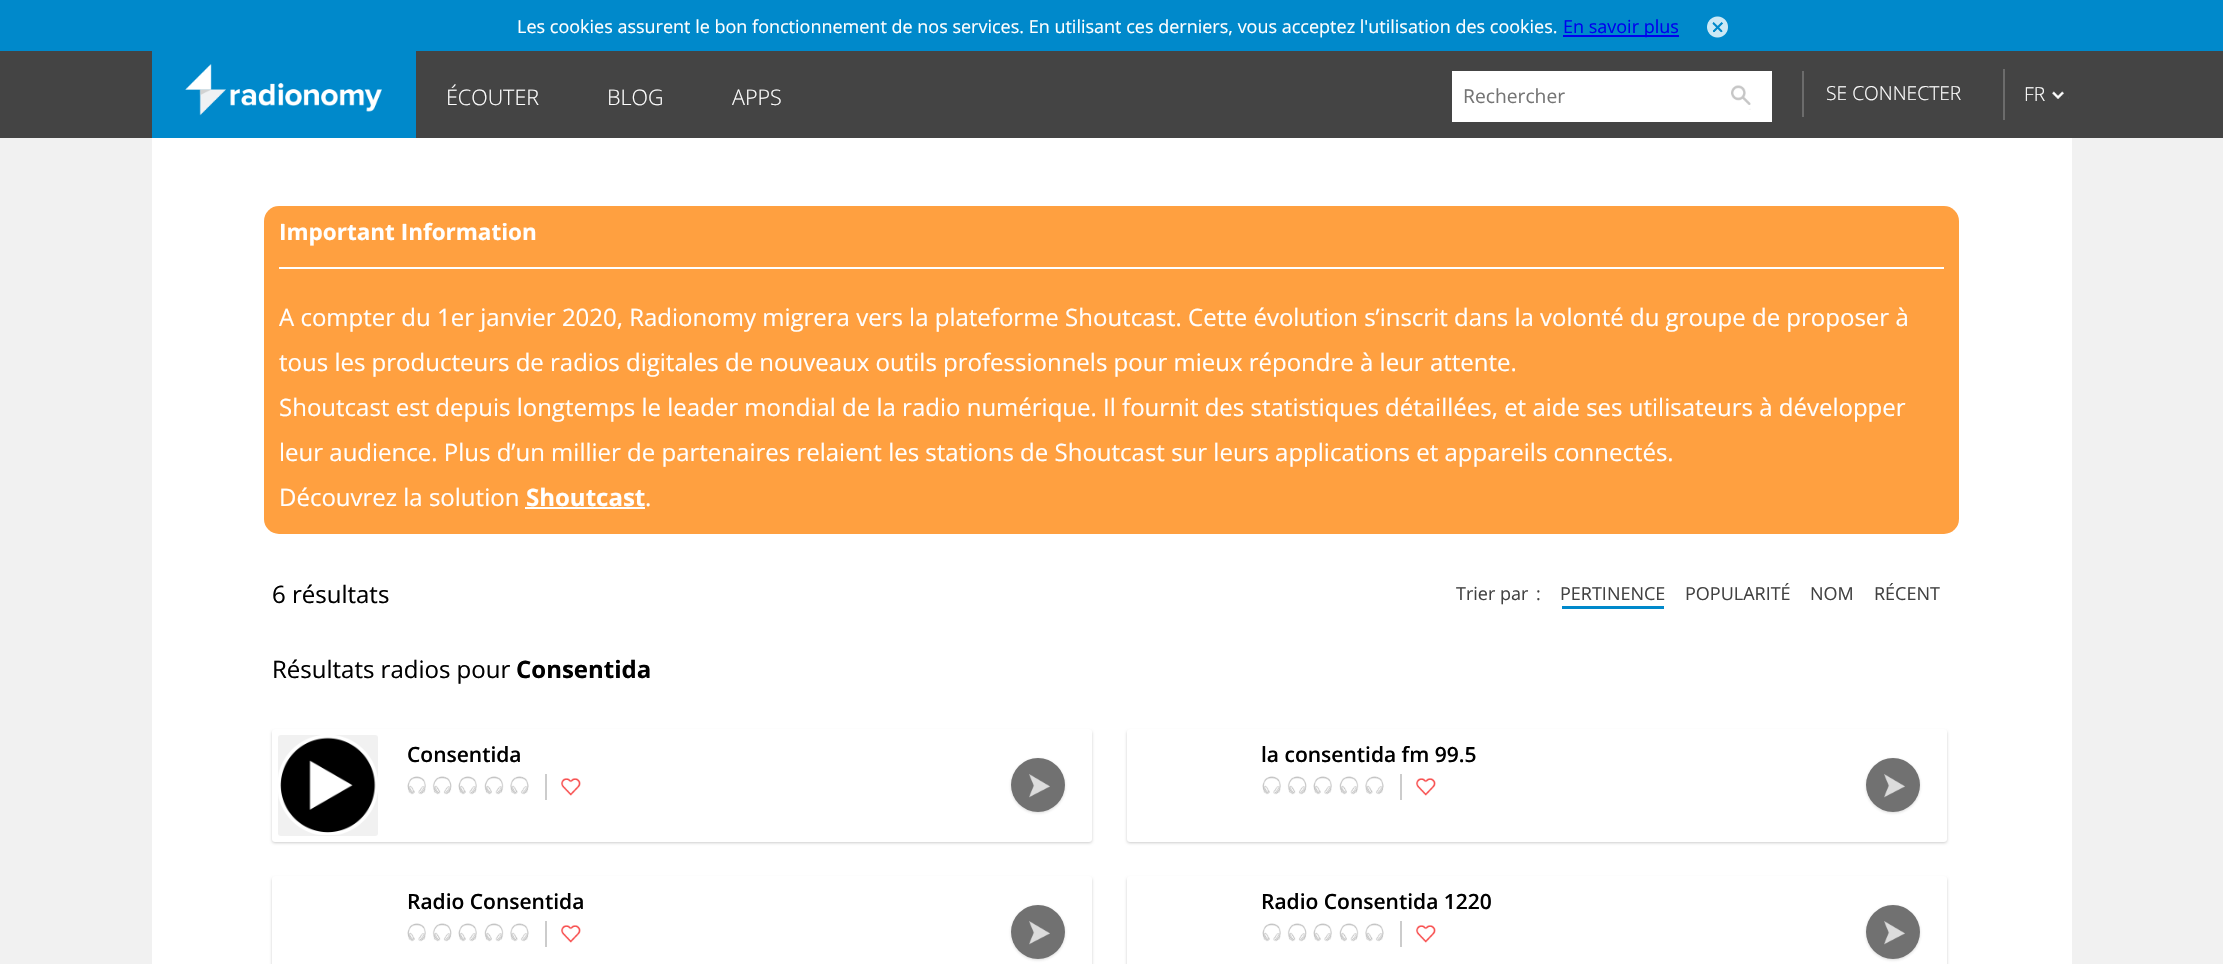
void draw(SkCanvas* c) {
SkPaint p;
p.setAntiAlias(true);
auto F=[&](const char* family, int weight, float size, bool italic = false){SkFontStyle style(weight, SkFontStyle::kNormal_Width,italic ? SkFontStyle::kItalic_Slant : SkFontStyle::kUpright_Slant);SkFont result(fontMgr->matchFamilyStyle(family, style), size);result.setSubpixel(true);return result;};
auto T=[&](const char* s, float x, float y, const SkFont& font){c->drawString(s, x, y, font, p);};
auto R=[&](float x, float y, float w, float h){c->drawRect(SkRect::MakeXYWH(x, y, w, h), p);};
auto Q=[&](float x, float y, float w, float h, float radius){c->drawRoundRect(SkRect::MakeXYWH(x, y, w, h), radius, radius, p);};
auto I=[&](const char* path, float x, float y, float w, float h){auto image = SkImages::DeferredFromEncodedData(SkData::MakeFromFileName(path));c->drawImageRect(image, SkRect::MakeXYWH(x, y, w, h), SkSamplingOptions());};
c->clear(0xfff1f1f1);
p.setColor(0xff0089cb);
R(0,0,2223,51);
auto f1 = F("Open Sans",400,18);
p.setColor(0xffffffff);
T("Les cookies assurent le bon fonctionnement de nos services. En utilisant ces derniers, vous acceptez l'utilisation des cookies.",517,33,f1);
p.setColor(0xff0000ee);
R(1563,35,116,2);
T("En savoir plus",1563,33,f1);
I("1.png",1707,16,21,22);
p.setColor(0xff444444);
R(0,51,2223,87);
p.setColor(0xff0089cb);
R(152,51,264,87);
I("2.png",185,64,197,52);
auto f2 = F("Open Sans",300,21.5);
p.setColor(0xffffffff);
T("ÉCOUTER",446,105,f2);
T("BLOG",607,105,f2);
T("APPS",732,105,f2);
R(1452,71,320,51);
auto f3 = F("Open Sans",400,19.25);
p.setColor(0xff757575);
T("Rechercher",1463,103,f3);
I("3.png",1731,85,20,25);
p.setColor(0xff6c6c6c);
R(1802,71,2,46);
auto f4 = F("Open Sans",300,19.25);
p.setColor(0xffffffff);
T("SE CONNECTER",1826,100,f4);
p.setColor(0xff6c6c6c);
R(2003,69,2,51);
I("4.png",2052,91,17,8);
p.setColor(0xffffffff);
T("FR",2024,101,f4);
R(152,138,1920,826);
p.setColor(0xffffa040);
Q(264,206,1695,328,15);
auto f5 = F("Open Sans",700,22.5);
p.setColor(0xffffffff);
T("Important Information",279,240,f5);
R(279,267,1665,2);
auto f6 = F("Open Sans",400,24);
T("A compter du 1er janvier 2020, Radionomy migrera vers la plateforme Shoutcast. Cette évolution s’inscrit dans la volonté du groupe de proposer à",279,326,f6);
T("tous les producteurs de radios digitales de nouveaux outils professionnels pour mieux répondre à leur attente.",279,371,f6);
T("Shoutcast est depuis longtemps le leader mondial de la radio numérique. Il fournit des statistiques détaillées, et aide ses utilisateurs à développer",279,416,f6);
T("leur audience. Plus d’un millier de partenaires relaient les stations de Shoutcast sur leurs applications et appareils connectés.",279,461,f6);
T("Découvrez la solution",279,506,f6);
auto f7 = F("Open Sans",700,24);
T("Shoutcast",526,506,f7);
R(525,507,120,2);
T(".",645,506,f6);
p.setColor(0xff000000);
T("6 résultats",272,603,f6);
p.setColor(0xff424242);
T("Trier par",1456,600,f1);
T(":",1536,600,f1);
T("PERTINENCE",1560,600,f1);
p.setColor(0xff0089cb);
R(1562,606,102,3);
p.setColor(0xff424242);
T("POPULARITÉ",1685,600,f1);
T("NOM",1810,600,f1);
T("RÉCENT",1874,600,f1);
p.setColor(0xff000000);
T("Résultats radios pour",272,678,f6);
T("Consentida",516,678,f7);
p.setColor(0x33000000);
p.setMaskFilter(SkMaskFilter::MakeBlur(kNormal_SkBlurStyle, 1.5));
c->drawRoundRect(SkRect::MakeXYWH(272,731,820,112),3,3,p);
p.setMaskFilter(nullptr);
p.setColor(0xffffffff);
Q(272,729,820,113,3);
p.setColor(0xfff1f1f1);
Q(278,735,100,101,3);
I("5.png",278,735,100,100);
auto f8 = F("Open Sans",600,21);
p.setColor(0xff000000);
T("Consentida",407,762,f8);
I("6.png",407,776,122,19);
p.setColor(0xffcccccc);
R(545,774,2,26);
I("7.png",561,778,20,18);
p.setColor(0x33404040);
p.setMaskFilter(SkMaskFilter::MakeBlur(kNormal_SkBlurStyle, 1.5));
c->drawRoundRect(SkRect::MakeXYWH(1011,759,54,54),27,27,p);
p.setMaskFilter(nullptr);
p.setColor(0xff717171);
c->drawCircle(1038,785,27,p);
I("8.png",1029,774,21,24);
p.setColor(0x33000000);
p.setMaskFilter(SkMaskFilter::MakeBlur(kNormal_SkBlurStyle, 1.5));
c->drawRoundRect(SkRect::MakeXYWH(1127,731,820,112),3,3,p);
p.setMaskFilter(nullptr);
p.setColor(0xffffffff);
Q(1127,729,820,113,3);
p.setColor(0xff000000);
T("la consentida fm 99.5",1261,762,f8);
I("9.png",1262,776,122,19);
p.setColor(0xffcccccc);
R(1400,774,2,26);
I("10.png",1416,778,20,18);
p.setColor(0x33404040);
p.setMaskFilter(SkMaskFilter::MakeBlur(kNormal_SkBlurStyle, 1.5));
c->drawRoundRect(SkRect::MakeXYWH(1866,759,54,54),27,27,p);
p.setMaskFilter(nullptr);
p.setColor(0xff717171);
c->drawCircle(1893,785,27,p);
I("11.png",1884,774,21,24);
p.setColor(0x33000000);
p.setMaskFilter(SkMaskFilter::MakeBlur(kNormal_SkBlurStyle, 1.5));
c->drawRoundRect(SkRect::MakeXYWH(272,878,820,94),3,3,p);
p.setMaskFilter(nullptr);
p.setColor(0xffffffff);
Q(272,876,820,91,3);
p.setColor(0xff000000);
T("Radio Consentida",407,909,f8);
I("6.png",407,923,122,19);
p.setColor(0xffcccccc);
R(545,921,2,26);
I("7.png",561,925,20,18);
p.setColor(0x33404040);
p.setMaskFilter(SkMaskFilter::MakeBlur(kNormal_SkBlurStyle, 1.5));
c->drawRoundRect(SkRect::MakeXYWH(1011,906,54,54),27,27,p);
p.setMaskFilter(nullptr);
p.setColor(0xff717171);
c->drawCircle(1038,932,27,p);
I("8.png",1029,921,21,24);
p.setColor(0x33000000);
p.setMaskFilter(SkMaskFilter::MakeBlur(kNormal_SkBlurStyle, 1.5));
c->drawRoundRect(SkRect::MakeXYWH(1127,878,820,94),3,3,p);
p.setMaskFilter(nullptr);
p.setColor(0xffffffff);
Q(1127,876,820,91,3);
p.setColor(0xff000000);
T("Radio Consentida 1220",1261,909,f8);
I("9.png",1262,923,122,19);
p.setColor(0xffcccccc);
R(1400,921,2,26);
I("10.png",1416,925,20,18);
p.setColor(0x33404040);
p.setMaskFilter(SkMaskFilter::MakeBlur(kNormal_SkBlurStyle, 1.5));
c->drawRoundRect(SkRect::MakeXYWH(1866,906,54,54),27,27,p);
p.setMaskFilter(nullptr);
p.setColor(0xff717171);
c->drawCircle(1893,932,27,p);
I("11.png",1884,921,21,24);
}
